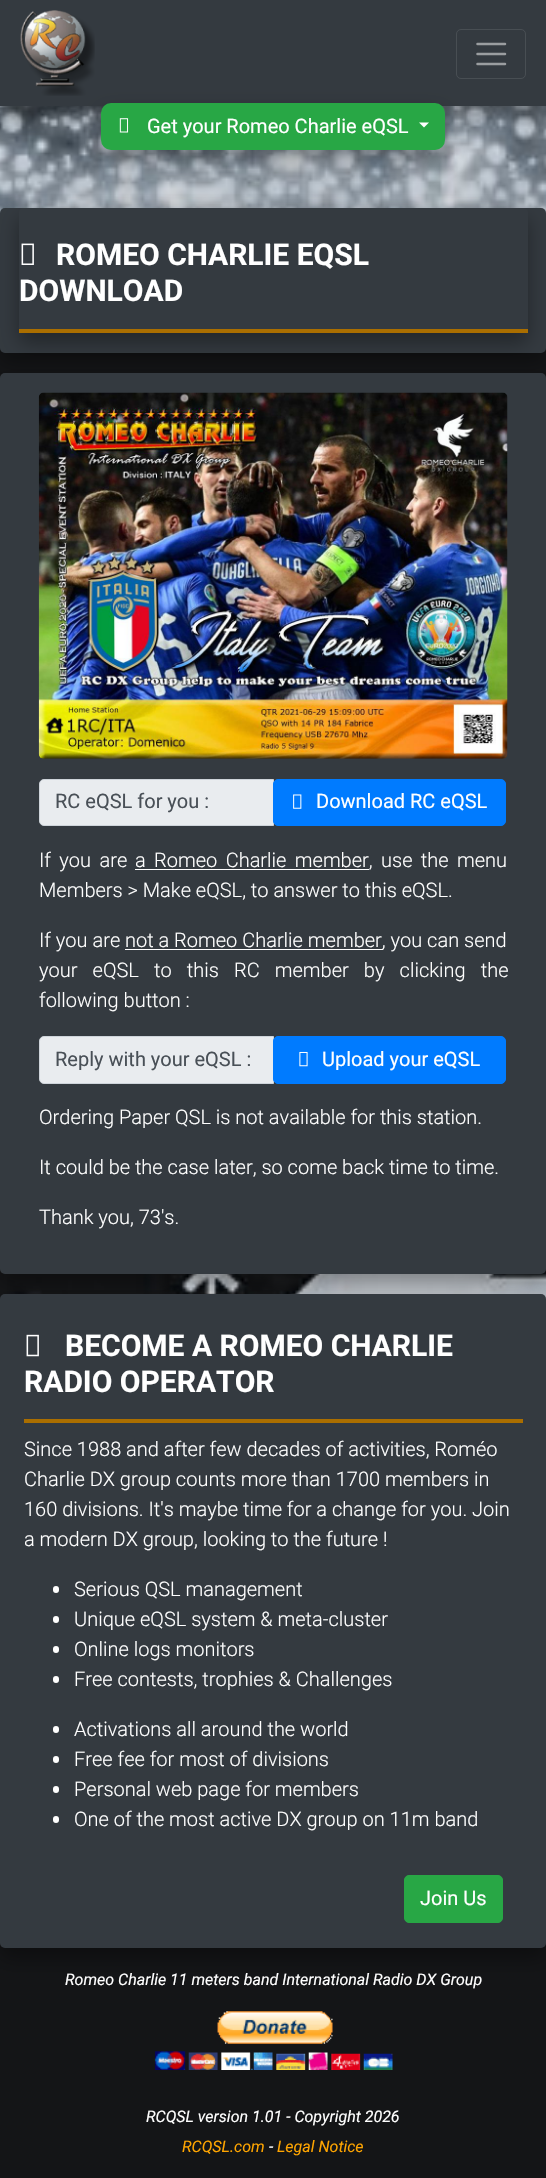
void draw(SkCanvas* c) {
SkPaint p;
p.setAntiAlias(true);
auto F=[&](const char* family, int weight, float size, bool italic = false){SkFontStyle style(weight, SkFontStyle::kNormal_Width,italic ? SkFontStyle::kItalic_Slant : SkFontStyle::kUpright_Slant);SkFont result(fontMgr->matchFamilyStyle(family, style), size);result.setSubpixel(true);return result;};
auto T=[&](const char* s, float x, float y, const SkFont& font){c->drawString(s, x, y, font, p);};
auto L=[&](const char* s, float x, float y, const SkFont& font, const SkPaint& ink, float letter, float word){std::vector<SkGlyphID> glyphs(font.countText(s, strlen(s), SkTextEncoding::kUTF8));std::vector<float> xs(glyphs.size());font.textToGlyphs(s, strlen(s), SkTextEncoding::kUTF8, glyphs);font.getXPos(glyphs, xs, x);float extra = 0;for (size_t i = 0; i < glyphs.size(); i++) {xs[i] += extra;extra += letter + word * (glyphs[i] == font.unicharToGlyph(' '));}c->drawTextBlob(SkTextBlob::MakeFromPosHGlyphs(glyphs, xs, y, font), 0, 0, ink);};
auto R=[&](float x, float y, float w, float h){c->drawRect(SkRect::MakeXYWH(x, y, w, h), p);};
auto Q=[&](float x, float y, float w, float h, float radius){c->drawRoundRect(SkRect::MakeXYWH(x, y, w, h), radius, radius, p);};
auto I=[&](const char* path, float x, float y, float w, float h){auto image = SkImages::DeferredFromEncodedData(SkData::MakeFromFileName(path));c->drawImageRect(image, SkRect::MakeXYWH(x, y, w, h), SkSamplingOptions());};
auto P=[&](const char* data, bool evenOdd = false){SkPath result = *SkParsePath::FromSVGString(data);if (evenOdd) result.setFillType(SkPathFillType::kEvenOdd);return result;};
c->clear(0xffffffff);
I("1.png",0,106,546,2072);
p.setColor(0x59000000);
p.setMaskFilter(SkMaskFilter::MakeBlur(kNormal_SkBlurStyle, 10));
c->drawRect(SkRect::MakeXYWH(0,10,546,106),p);
p.setMaskFilter(nullptr);
p.setColor(0xff343a40);
R(0,0,546,106);
I("2.png",20,10,75,86);
p.setStroke(true);
p.setStrokeWidth(1);
p.setColor(0xff484e53);
c->drawRoundRect(SkRect::MakeXYWH(456.5,29.5,69,49),4.5,4.5,p);
p.setStrokeWidth(2.5);
p.setStrokeCap(SkPaint::kRound_Cap);
p.setColor(0xff9a9da0);
c->drawPath(P("M477.5 44h27.5m-27.5 10h27.5m-27.5 10h27.5"),p);
p.setStroke(false);
p.setColor(0x59000000);
p.setMaskFilter(SkMaskFilter::MakeBlur(kNormal_SkBlurStyle, 10));
c->drawRoundRect(SkRect::MakeXYWH(101,113,344,47),10,10,p);
p.setMaskFilter(nullptr);
p.setColor(0xff28a745);
Q(101,103,344,47,10);
I("3.png",119,118,10,15);
auto f1 = F("Roboto",400,20);
p.setColor(0xffffffff);
T("Get your Romeo Charlie eQSL",147,133,f1);
c->drawPath(P("M419 122.5h10l-5 5z"),p);
p.setColor(0x59000000);
p.setMaskFilter(SkMaskFilter::MakeBlur(kNormal_SkBlurStyle, 10));
c->drawRoundRect(SkRect::MakeXYWH(0,218,546,145),5,5,p);
p.setMaskFilter(nullptr);
p.setColor(0xff343a40);
Q(0,208,546,145,5);
p.setColor(0x59000000);
p.setMaskFilter(SkMaskFilter::MakeBlur(kNormal_SkBlurStyle, 10));
c->drawRoundRect(SkRect::MakeXYWH(0,383,546,901),5,5,p);
p.setMaskFilter(nullptr);
p.setColor(0xff343a40);
Q(0,373,546,901,5);
p.setColor(0x59000000);
p.setMaskFilter(SkMaskFilter::MakeBlur(kNormal_SkBlurStyle, 10));
c->drawRoundRect(SkRect::MakeXYWH(19,218,509,125),5,5,p);
p.setMaskFilter(nullptr);
p.setColor(0xff343a40);
Q(19,208,509,125,5);
p.setColor(0xffaa6e00);
R(19,329,509,4);
I("4.png",21,243,13,22);
auto f2 = F("Roboto",700,30);
p.setColor(0xffffffff);
T("ROMEO CHARLIE EQSL",56,265,f2);
T("DOWNLOAD",19,301,f2);
I("5.png",38,392,470,367);
p.setColor(0xffe9ecef);
c->drawPath(P("M44 779.5h229.5v46h-229.5c-2.5 0-4.5-2-4.5-4.5v-37c0-2.5 2-4.5 4.5-4.5z"),p);
p.setStroke(true);
p.setStrokeWidth(1);
p.setStrokeCap(SkPaint::kButt_Cap);
p.setColor(0xffced4da);
c->drawPath(P("M44 779.5h229.5v46h-229.5c-2.5 0-4.5-2-4.5-4.5v-37c0-2.5 2-4.5 4.5-4.5z"),p);
p.setStroke(false);
p.setColor(0xff495057);
T("RC eQSL for you :",55,808,f1);
p.setColor(0xff007bff);
c->drawRoundRect(SkRect::MakeXYWH(273.5,779.5,232,46),4.5,4.5,p);
p.setStroke(true);
c->drawRoundRect(SkRect::MakeXYWH(273.5,779.5,232,46),4.5,4.5,p);
I("6.png",293,794,9,15);
p.setStroke(false);
p.setColor(0xffffffff);
T("Download RC eQSL",316,808,f1);
auto f3 = F("Roboto",300,20);
L("If you are",39,867,f3,p,0,3.5);
R(135,869,234,1);
L("a Romeo Charlie member, use the menu",135,867,f3,p,0,3.5);
T("Members > Make eQSL, to answer to this eQSL.",39,897,f3);
T("If you are",39,947,f3);
R(125,949,258,1);
T("not a Romeo Charlie member, you can send",125,947,f3);
L("your eQSL to this RC member by clicking the",39,977,f3,p,0,10.25);
T("following button :",39,1007,f3);
p.setColor(0xffe9ecef);
c->drawPath(P("M44 1036.5h229.5v47h-229.5c-2.5 0-4.5-2-4.5-4.5v-38c0-2.5 2-4.5 4.5-4.5z"),p);
p.setStroke(true);
p.setColor(0xffced4da);
c->drawPath(P("M44 1036.5h229.5v47h-229.5c-2.5 0-4.5-2-4.5-4.5v-38c0-2.5 2-4.5 4.5-4.5z"),p);
p.setStroke(false);
p.setColor(0xff495057);
T("Reply with your eQSL :",55,1066,f1);
p.setColor(0xff007bff);
c->drawRoundRect(SkRect::MakeXYWH(273.5,1036.5,232,47),4.5,4.5,p);
p.setStroke(true);
c->drawRoundRect(SkRect::MakeXYWH(273.5,1036.5,232,47),4.5,4.5,p);
I("7.png",299,1051,9,16);
p.setStroke(false);
p.setColor(0xffffffff);
T("Upload your eQSL",322,1066,f1);
T("Ordering Paper QSL is not available for this station.",39,1124,f3);
T("It could be the case later, so come back time to time.",39,1174,f3);
T("Thank you, 73's.",39,1224,f3);
p.setColor(0x59000000);
p.setMaskFilter(SkMaskFilter::MakeBlur(kNormal_SkBlurStyle, 10));
c->drawRoundRect(SkRect::MakeXYWH(0,1304,546,654),5,5,p);
p.setMaskFilter(nullptr);
p.setColor(0xff343a40);
Q(0,1294,546,654,5);
p.setColor(0xffaa6e00);
R(24,1419,499,4);
I("8.png",26,1334,13,23);
p.setColor(0xffffffff);
T("BECOME A ROMEO CHARLIE",65,1356,f2);
T("RADIO OPERATOR",24,1392,f2);
T("Since 1988 and after few decades of activities, Roméo",24,1456,f3);
T("Charlie DX group counts more than 1700 members in",24,1486,f3);
T("160 divisions. It's maybe time for a change for you. Join",24,1516,f3);
T("a modern DX group, looking to the future !",24,1546,f3);
Q(53,1586,6,7,3);
T("Serious QSL management",74,1596,f3);
Q(53,1616,6,7,3);
T("Unique eQSL system & meta-cluster",74,1626,f3);
Q(53,1646,6,7,3);
T("Online logs monitors",74,1656,f3);
Q(53,1676,6,7,3);
T("Free contests, trophies & Challenges",74,1686,f3);
Q(53,1726,6,7,3);
T("Activations all around the world",74,1736,f3);
Q(53,1756,6,7,3);
T("Free fee for most of divisions",74,1766,f3);
Q(53,1786,6,7,3);
T("Personal web page for members",74,1796,f3);
Q(53,1816,6,7,3);
T("One of the most active DX group on 11m band",74,1826,f3);
p.setColor(0xff28a745);
c->drawRoundRect(SkRect::MakeXYWH(404.5,1875.5,98,47),4.5,4.5,p);
p.setStroke(true);
c->drawRoundRect(SkRect::MakeXYWH(404.5,1875.5,98,47),4.5,4.5,p);
p.setStroke(false);
p.setColor(0xffffffff);
T("Join Us",420,1905,f1);
auto f4 = F("Roboto",400,16,true);
T("Romeo Charlie 11 meters band International Radio DX Group",65,1985,f4);
I("9.png",154,2011,239,59);
T("RCQSL version 1.01 - Copyright 2026",146,2122,f4);
p.setColor(0xffffa500);
T("RCQSL.com",182,2152,f4);
p.setColor(0xffffffff);
T("-",269,2152,f4);
p.setColor(0xffffa500);
T("Legal Notice",277,2152,f4);
}
